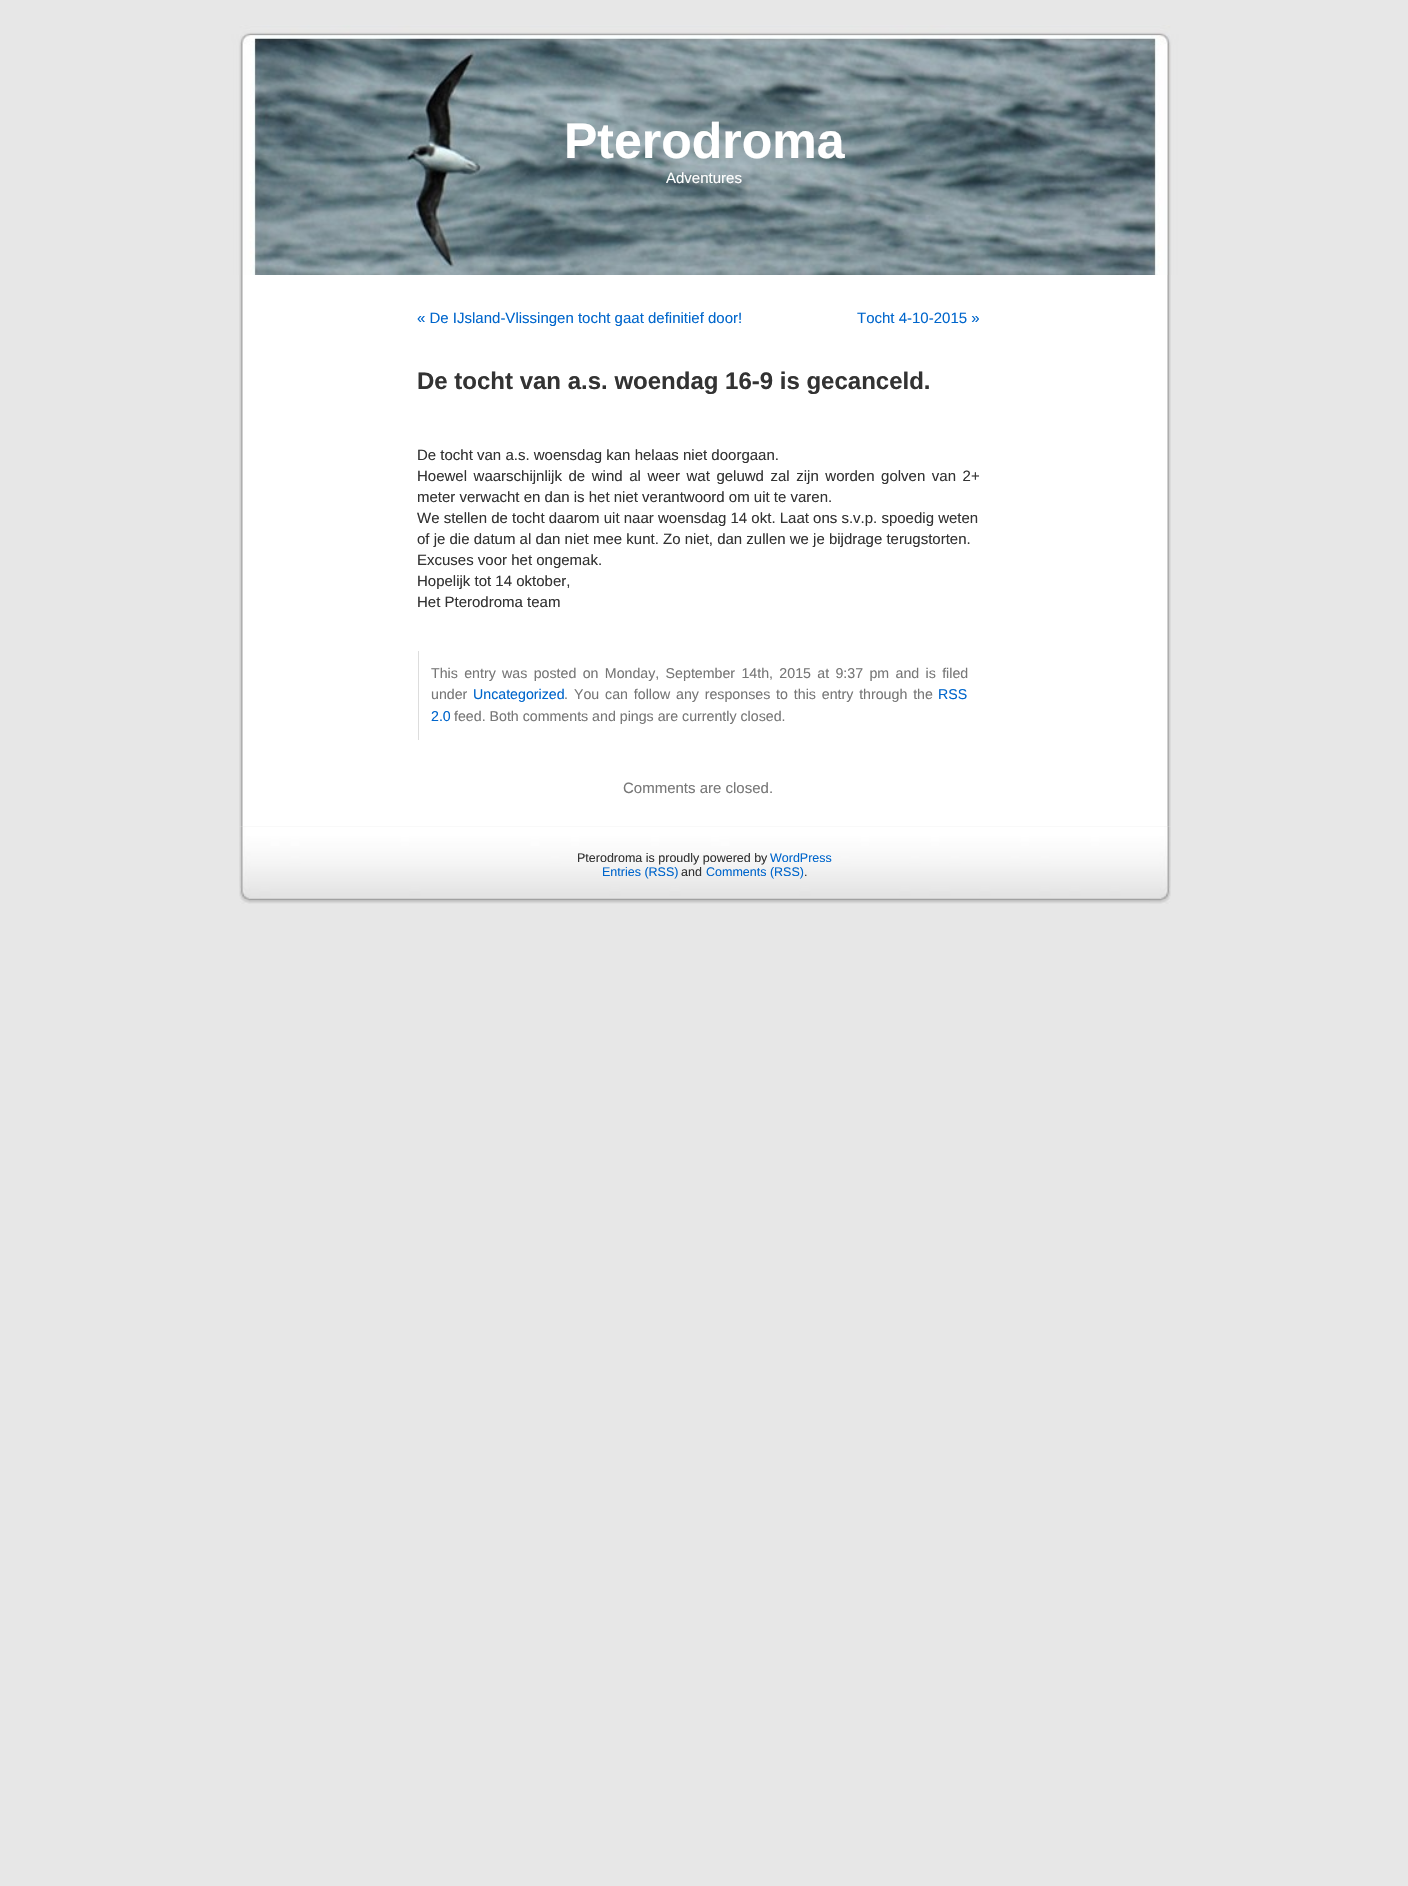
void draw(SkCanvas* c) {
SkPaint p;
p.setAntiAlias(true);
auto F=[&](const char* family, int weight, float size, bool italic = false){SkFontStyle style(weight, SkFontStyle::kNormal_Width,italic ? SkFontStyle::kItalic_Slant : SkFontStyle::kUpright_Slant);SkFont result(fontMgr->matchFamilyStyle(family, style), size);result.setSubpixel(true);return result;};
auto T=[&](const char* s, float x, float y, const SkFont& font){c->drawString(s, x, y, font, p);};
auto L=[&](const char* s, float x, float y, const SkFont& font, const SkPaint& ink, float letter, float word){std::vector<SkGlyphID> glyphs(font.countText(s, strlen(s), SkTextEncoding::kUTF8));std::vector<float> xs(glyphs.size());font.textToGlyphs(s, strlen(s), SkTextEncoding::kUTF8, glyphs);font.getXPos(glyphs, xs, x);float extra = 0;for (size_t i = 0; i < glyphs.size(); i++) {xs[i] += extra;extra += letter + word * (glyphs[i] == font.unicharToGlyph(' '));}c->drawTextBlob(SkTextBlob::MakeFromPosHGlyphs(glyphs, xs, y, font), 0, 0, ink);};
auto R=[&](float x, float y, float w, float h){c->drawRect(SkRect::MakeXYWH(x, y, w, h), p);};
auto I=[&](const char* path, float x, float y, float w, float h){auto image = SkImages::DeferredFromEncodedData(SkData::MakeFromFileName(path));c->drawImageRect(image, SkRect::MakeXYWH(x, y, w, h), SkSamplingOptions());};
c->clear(0xffe7e7e7);
I("1.png",239,275,932,551);
I("2.png",231,25,948,250);
auto f1 = F("Liberation Sans",700,50);
p.setColor(0xffffffff);
T("Pterodroma",564,158,f1);
auto f2 = F("Liberation Sans",400,15);
T("Adventures",666,183,f2);
p.setColor(0xff0066cc);
T("« De IJsland-Vlissingen tocht gaat definitief door!",417,323,f2);
T("Tocht 4-10-2015 »",857,323,f2);
auto f3 = F("Liberation Sans",700,24);
p.setColor(0xff333333);
T("De tocht van a.s. woendag 16-9 is gecanceld.",417,389,f3);
T("De tocht van a.s. woensdag kan helaas niet doorgaan.",417,460,f2);
L("Hoewel waarschijnlijk de wind al weer wat geluwd zal zijn worden golven van 2+",417,481,f2,p,0,2.4);
T("meter verwacht en dan is het niet verantwoord om uit te varen.",417,502,f2);
T("We stellen de tocht daarom uit naar woensdag 14 okt. Laat ons s.v.p. spoedig weten",417,523,f2);
T("of je die datum al dan niet mee kunt. Zo niet, dan zullen we je bijdrage terugstorten.",417,544,f2);
T("Excuses voor het ongemak.",417,565,f2);
T("Hopelijk tot 14 oktober,",417,586,f2);
T("Het Pterodroma team",417,607,f2);
p.setColor(0xffdddddd);
R(418,651,1,89);
auto f4 = F("Liberation Sans",400,14.2);
p.setColor(0xff777777);
L("This entry was posted on Monday, September 14th, 2015 at 9:37 pm and is filed",431,678,f4,p,0,2.4);
T("under",431,699,f4);
p.setColor(0xff0066cc);
T("Uncategorized",473,699,f4);
p.setColor(0xff777777);
T(".",564,699,f4);
L("You can follow any responses to this entry through the",574,699,f4,p,0,1.9);
p.setColor(0xff0066cc);
T("RSS",938,699,f4);
T("2.0",431,721,f4);
p.setColor(0xff777777);
T("feed. Both comments and pings are currently closed.",454,721,f4);
T("Comments are closed.",623,793,f2);
I("3.png",239,826,932,78);
auto f5 = F("Liberation Sans",400,12.5);
p.setColor(0xff333333);
T("Pterodroma is proudly powered by",577,862,f5);
p.setColor(0xff0066cc);
T("WordPress",770,862,f5);
T("Entries (RSS)",602,876,f5);
p.setColor(0xff333333);
T("and",681,876,f5);
p.setColor(0xff0066cc);
T("Comments (RSS)",706,876,f5);
p.setColor(0xff333333);
T(".",804,876,f5);
}
